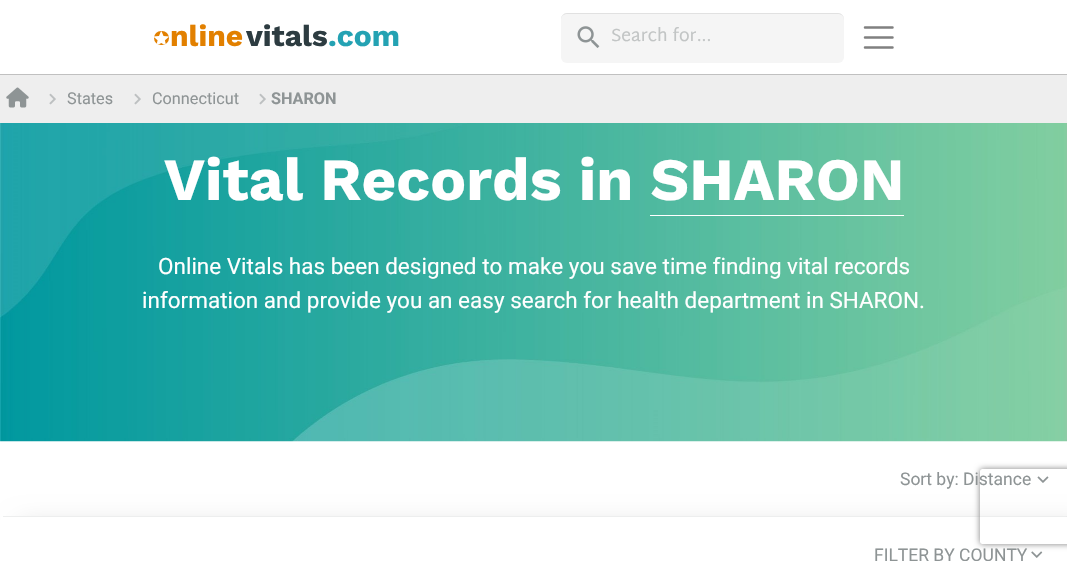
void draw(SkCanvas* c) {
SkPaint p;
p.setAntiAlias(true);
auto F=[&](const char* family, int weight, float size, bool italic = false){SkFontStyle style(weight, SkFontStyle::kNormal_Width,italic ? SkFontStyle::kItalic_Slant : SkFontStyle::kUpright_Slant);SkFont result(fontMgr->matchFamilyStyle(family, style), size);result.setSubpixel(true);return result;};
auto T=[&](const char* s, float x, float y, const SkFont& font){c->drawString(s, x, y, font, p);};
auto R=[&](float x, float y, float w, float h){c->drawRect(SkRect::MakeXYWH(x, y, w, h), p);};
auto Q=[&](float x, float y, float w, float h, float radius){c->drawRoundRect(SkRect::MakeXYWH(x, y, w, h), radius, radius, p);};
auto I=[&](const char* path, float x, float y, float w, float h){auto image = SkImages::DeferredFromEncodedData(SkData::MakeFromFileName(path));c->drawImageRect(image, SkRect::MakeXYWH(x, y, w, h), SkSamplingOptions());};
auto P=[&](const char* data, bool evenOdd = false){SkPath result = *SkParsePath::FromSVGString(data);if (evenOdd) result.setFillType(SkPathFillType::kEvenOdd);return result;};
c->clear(0xffffffff);
p.setColor(0xffc0c0c0);
R(0,74,1067,1);
p.setColor(0xffe28000);
Q(154,31,15,14,7);
I("1.png",154,31,15,14);
auto f1 = F("Work Sans",700,30);
T("nline",170,46,f1);
p.setColor(0xff2d3c41);
T("vitals",246,46,f1);
p.setColor(0xff24a2b3);
T(".com",328,46,f1);
p.setColor(0xfff5f5f5);
Q(561,13,283,50,6);
I("2.png",577,26,23,22);
p.setColor(0xffe1e1e1);
c->drawPath(P("M567 14h271c3 0 6 2 6 6v-1c0-3-3-6-6-6h-271c-3 0-6 3-6 6v1c0-4 3-6 6-6z"),p);
auto f2 = F("Martel Sans",400,17.5);
p.setColor(0xffc2c5c5);
T("Search for...",611,41,f2);
p.setStroke(true);
p.setStrokeWidth(2.5);
p.setStrokeCap(SkPaint::kRound_Cap);
p.setColor(0xff808080);
c->drawPath(P("M865 27.5h27.5m-27.5 10h27.5m-27.5 10h27.5"),p);
p.setStroke(false);
p.setColor(0xffeeeeee);
R(0,75,1067,48);
I("3.png",6,87,23,21);
I("4.png",49,93,7,12);
auto f3 = F("Roboto",400,16.25);
p.setColor(0xff8e9495);
T("States",67,104,f3);
I("4.png",134,93,7,12);
T("Connecticut",152,104,f3);
I("4.png",259,93,7,12);
auto f4 = F("Roboto",700,16.25);
T("SHARON",271,104,f4);
c->save();
c->clipRect(SkRect::MakeXYWH(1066,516,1,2));
p.setColor(0x1f000000);
p.setMaskFilter(SkMaskFilter::MakeBlur(kNormal_SkBlurStyle, 12.5));
c->drawRect(SkRect::MakeXYWH(13,448,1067,75),p);
p.setMaskFilter(nullptr);
c->restore();
I("5.png",0,123,1067,319);
auto f5 = F("Work Sans",700,60);
p.setColor(0xffffffff);
T("Vital Records in SHARON",164,200,f5);
R(650,215,254,1);
auto f6 = F("Roboto",400,22.5);
T("Online Vitals has been designed to make you save time finding vital records",158,274,f6);
T("information and provide you an easy search for health department in SHARON.",142,308,f6);
p.setColor(0x1f000000);
p.setMaskFilter(SkMaskFilter::MakeBlur(kNormal_SkBlurStyle, 12.5));
c->drawRoundRect(SkRect::MakeXYWH(19,523,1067,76),4,4,p);
p.setMaskFilter(nullptr);
auto f7 = F("Roboto",400,17.5);
p.setColor(0xff8e9495);
T("Sort by: Distance",900,485,f7);
I("6.png",1037,476,12,7);
p.setColor(0xffffffff);
Q(0,516,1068,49,4);
p.setColor(0xffedeeee);
R(3,516,1063,1);
p.setColor(0xff8e9495);
T("FILTER BY COUNTY",874,561,f7);
I("7.png",1031,551,12,7);
c->save();
c->clipPath(P("M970 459h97v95h-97zm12.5 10h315c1.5 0 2.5 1 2.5 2.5v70c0 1.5-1 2.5-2.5 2.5h-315c-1.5 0-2.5-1-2.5-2.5v-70c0-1.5 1-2.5 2.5-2.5z",true),true);
p.setColor(0xff808080);
p.setMaskFilter(SkMaskFilter::MakeBlur(kNormal_SkBlurStyle, 3));
c->drawRoundRect(SkRect::MakeXYWH(980,469,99,75),2.5,2.5,p);
p.setMaskFilter(nullptr);
c->restore();
}
